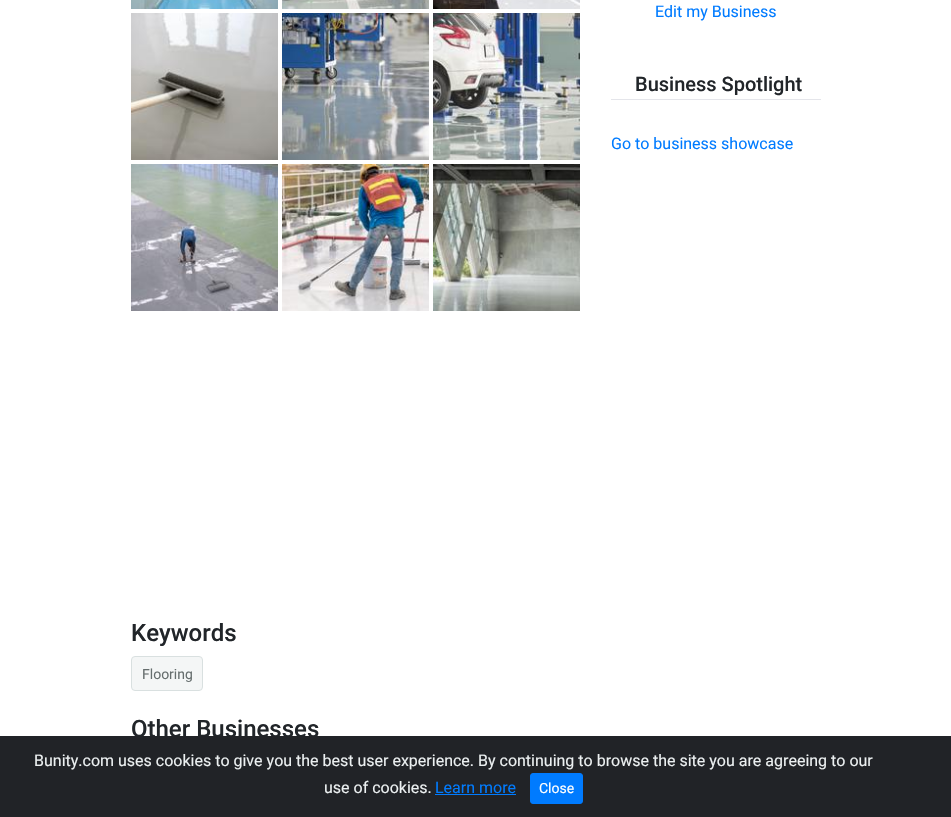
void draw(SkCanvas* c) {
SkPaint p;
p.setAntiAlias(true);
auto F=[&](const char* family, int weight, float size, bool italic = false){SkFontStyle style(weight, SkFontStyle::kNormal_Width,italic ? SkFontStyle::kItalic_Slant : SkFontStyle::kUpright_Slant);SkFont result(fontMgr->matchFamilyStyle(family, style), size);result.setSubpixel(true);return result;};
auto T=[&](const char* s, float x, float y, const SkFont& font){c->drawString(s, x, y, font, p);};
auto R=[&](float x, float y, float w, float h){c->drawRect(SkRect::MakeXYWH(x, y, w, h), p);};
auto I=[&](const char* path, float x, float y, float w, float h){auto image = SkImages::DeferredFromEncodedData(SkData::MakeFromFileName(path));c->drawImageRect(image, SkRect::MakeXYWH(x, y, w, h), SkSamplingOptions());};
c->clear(0xffffffff);
I("1.png",131,0,147,9);
I("2.png",282,0,147,9);
I("3.png",433,0,147,9);
I("4.png",131,13,147,147);
I("5.png",282,13,147,147);
I("6.png",433,13,147,147);
I("7.png",131,164,147,147);
I("8.png",282,164,147,147);
I("9.png",433,164,147,147);
auto f1 = F("Roboto",400,16);
p.setColor(0xff007bff);
T("Edit my Business",655,17,f1);
p.setColor(0xffe4e5ea);
R(611,99,210,1);
auto f2 = F("Roboto",500,20);
p.setColor(0xff212529);
T("Business Spotlight",635,91,f2);
p.setColor(0xff007bff);
T("Go to business showcase",611,149,f1);
auto f3 = F("Roboto",500,24);
p.setColor(0xff212529);
T("Keywords",131,641,f3);
p.setColor(0xfff4f6f6);
c->drawRoundRect(SkRect::MakeXYWH(131.5,656.5,71,34),3.5,3.5,p);
p.setStroke(true);
p.setStrokeWidth(1);
p.setColor(0xffd9e0e0);
c->drawRoundRect(SkRect::MakeXYWH(131.5,656.5,71,34),3.5,3.5,p);
auto f4 = F("Roboto",400,14);
p.setStroke(false);
p.setColor(0xff666e6e);
T("Flooring",142,679,f4);
p.setColor(0xff212529);
T("Other Businesses",131,737,f3);
p.setColor(0xff212327);
R(0,736,951,81);
p.setColor(0xffecf0f1);
T("Bunity.com uses cookies to give you the best user experience. By continuing to browse the site you are agreeing to our",34,766,f1);
T("use of cookies.",324,793,f1);
p.setColor(0xff007bff);
T("Learn more",435,793,f1);
R(435,794,81,1);
c->drawRoundRect(SkRect::MakeXYWH(530.5,773.5,52,30),2.5,2.5,p);
p.setStroke(true);
c->drawRoundRect(SkRect::MakeXYWH(530.5,773.5,52,30),2.5,2.5,p);
p.setStroke(false);
p.setColor(0xffffffff);
T("Close",539,793,f4);
}
